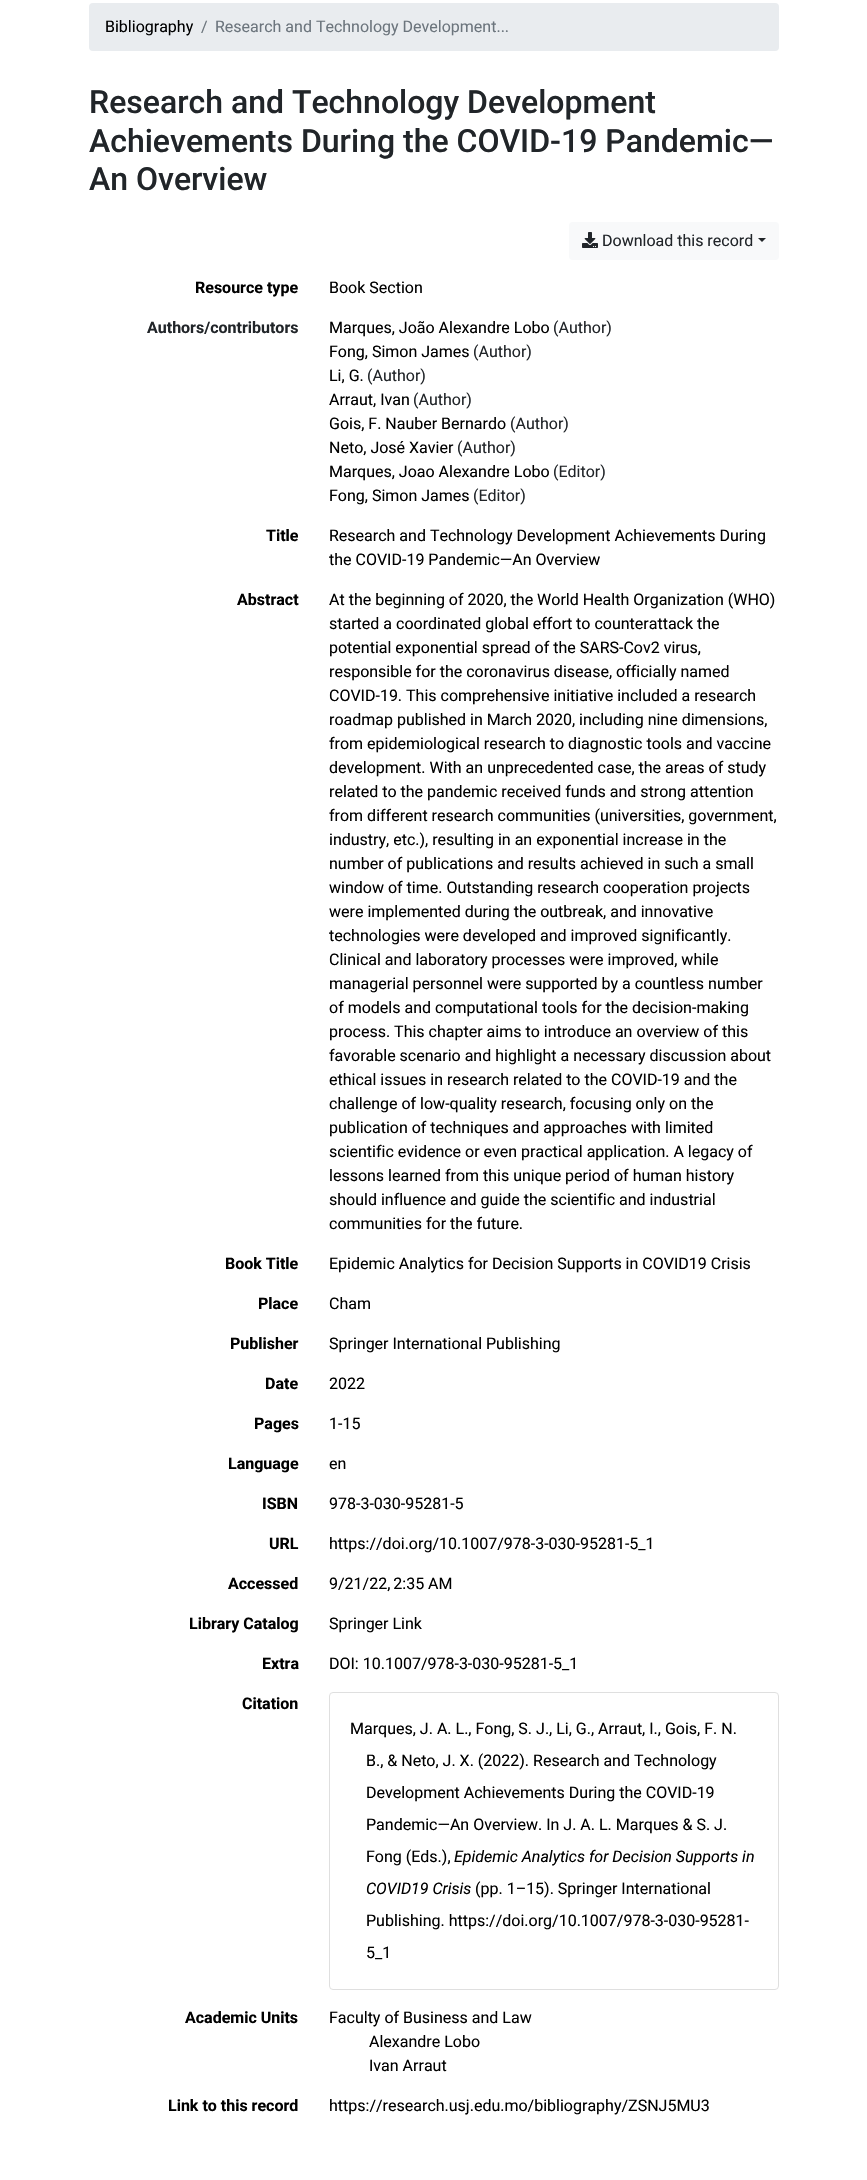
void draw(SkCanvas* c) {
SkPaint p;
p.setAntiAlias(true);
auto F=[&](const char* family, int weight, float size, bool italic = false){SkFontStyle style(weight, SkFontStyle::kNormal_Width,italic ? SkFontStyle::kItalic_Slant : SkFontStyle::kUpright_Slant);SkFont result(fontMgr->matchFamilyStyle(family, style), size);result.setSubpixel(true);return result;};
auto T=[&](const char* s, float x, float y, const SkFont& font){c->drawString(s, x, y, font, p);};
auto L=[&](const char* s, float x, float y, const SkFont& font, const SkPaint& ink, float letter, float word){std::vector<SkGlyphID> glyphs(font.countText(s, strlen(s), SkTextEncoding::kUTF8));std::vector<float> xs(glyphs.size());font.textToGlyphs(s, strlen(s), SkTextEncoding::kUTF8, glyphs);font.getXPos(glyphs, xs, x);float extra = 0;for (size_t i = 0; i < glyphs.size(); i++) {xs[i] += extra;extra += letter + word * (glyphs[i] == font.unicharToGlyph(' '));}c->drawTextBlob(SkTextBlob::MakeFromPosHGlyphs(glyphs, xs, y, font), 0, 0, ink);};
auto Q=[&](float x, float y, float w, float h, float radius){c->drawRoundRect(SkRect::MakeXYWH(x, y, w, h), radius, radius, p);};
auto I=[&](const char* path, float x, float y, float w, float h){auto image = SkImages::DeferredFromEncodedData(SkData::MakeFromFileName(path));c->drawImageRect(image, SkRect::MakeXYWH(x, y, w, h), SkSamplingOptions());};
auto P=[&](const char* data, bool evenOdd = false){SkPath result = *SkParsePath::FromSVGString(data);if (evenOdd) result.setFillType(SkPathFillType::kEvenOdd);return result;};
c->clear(0xffffffff);
p.setColor(0xffe9ecef);
Q(89,3,690,48,4);
auto f1 = F("Roboto",400,16);
p.setColor(0xff000000);
T("Bibliography",105,32,f1);
p.setColor(0xff6c757d);
T("/",201,32,f1);
T("Research and Technology Development...",215,32,f1);
auto f2 = F("Roboto",500,32);
p.setColor(0xff212529);
T("Research and Technology Development",89,113,f2);
T("Achievements During the COVID-19 Pandemic—",89,152,f2);
T("An Overview",89,190,f2);
p.setColor(0xfff8f9fa);
Q(569,222,210,38,4);
I("1.png",582,232,16,16);
p.setColor(0xff212529);
T("Download this record",602,246,f1);
c->drawPath(P("M758 238h8l-4 4z"),p);
auto f3 = F("Roboto",700,16);
p.setColor(0xff000000);
T("Resource type",195,293,f3);
T("Book Section",329,293,f1);
p.setColor(0xff212529);
T("Authors/contributors",147,333,f3);
p.setColor(0xff000000);
T("Marques, João Alexandre Lobo",329,333,f1);
p.setColor(0xff212529);
T("(Author)",553,333,f1);
p.setColor(0xff000000);
T("Fong, Simon James",329,357,f1);
p.setColor(0xff212529);
T("(Author)",473,357,f1);
p.setColor(0xff000000);
T("Li, G.",329,381,f1);
p.setColor(0xff212529);
T("(Author)",367,381,f1);
p.setColor(0xff000000);
T("Arraut, Ivan",329,405,f1);
p.setColor(0xff212529);
T("(Author)",413,405,f1);
p.setColor(0xff000000);
T("Gois, F. Nauber Bernardo",329,429,f1);
p.setColor(0xff212529);
T("(Author)",510,429,f1);
p.setColor(0xff000000);
T("Neto, José Xavier",329,453,f1);
p.setColor(0xff212529);
T("(Author)",457,453,f1);
p.setColor(0xff000000);
T("Marques, Joao Alexandre Lobo",329,477,f1);
p.setColor(0xff212529);
T("(Editor)",553,477,f1);
p.setColor(0xff000000);
T("Fong, Simon James",329,501,f1);
p.setColor(0xff212529);
T("(Editor)",473,501,f1);
p.setColor(0xff000000);
T("Title",266,541,f3);
T("Research and Technology Development Achievements During",329,541,f1);
T("the COVID-19 Pandemic—An Overview",329,565,f1);
T("Abstract",237,605,f3);
T("At the beginning of 2020, the World Health Organization (WHO)",329,605,f1);
T("started a coordinated global effort to counterattack the",329,629,f1);
T("potential exponential spread of the SARS-Cov2 virus,",329,653,f1);
T("responsible for the coronavirus disease, officially named",329,677,f1);
T("COVID-19. This comprehensive initiative included a research",329,701,f1);
T("roadmap published in March 2020, including nine dimensions,",329,725,f1);
T("from epidemiological research to diagnostic tools and vaccine",329,749,f1);
T("development. With an unprecedented case, the areas of study",329,773,f1);
T("related to the pandemic received funds and strong attention",329,797,f1);
T("from different research communities (universities, government,",329,821,f1);
T("industry, etc.), resulting in an exponential increase in the",329,845,f1);
T("number of publications and results achieved in such a small",329,869,f1);
T("window of time. Outstanding research cooperation projects",329,893,f1);
T("were implemented during the outbreak, and innovative",329,917,f1);
T("technologies were developed and improved significantly.",329,941,f1);
T("Clinical and laboratory processes were improved, while",329,965,f1);
T("managerial personnel were supported by a countless number",329,989,f1);
T("of models and computational tools for the decision-making",329,1013,f1);
T("process. This chapter aims to introduce an overview of this",329,1037,f1);
T("favorable scenario and highlight a necessary discussion about",329,1061,f1);
T("ethical issues in research related to the COVID-19 and the",329,1085,f1);
T("challenge of low-quality research, focusing only on the",329,1109,f1);
T("publication of techniques and approaches with limited",329,1133,f1);
T("scientific evidence or even practical application. A legacy of",329,1157,f1);
T("lessons learned from this unique period of human history",329,1181,f1);
T("should influence and guide the scientific and industrial",329,1205,f1);
T("communities for the future.",329,1229,f1);
T("Book Title",225,1269,f3);
T("Epidemic Analytics for Decision Supports in COVID19 Crisis",329,1269,f1);
T("Place",258,1309,f3);
T("Cham",329,1309,f1);
T("Publisher",230,1349,f3);
T("Springer International Publishing",329,1349,f1);
T("Date",265,1389,f3);
T("2022",329,1389,f1);
T("Pages",254,1429,f3);
T("1-15",329,1429,f1);
T("Language",228,1469,f3);
T("en",329,1469,f1);
T("ISBN",262,1509,f3);
T("978-3-030-95281-5",329,1509,f1);
T("URL",269,1549,f3);
T("https://doi.org/10.1007/978-3-030-95281-5_1",329,1549,f1);
T("Accessed",228,1589,f3);
L("9/21/22, 2:35",329,1589,f1,p,0,-1);
T("AM",428,1589,f1);
T("Library Catalog",189,1629,f3);
T("Springer Link",329,1629,f1);
T("Extra",262,1669,f3);
T("DOI: 10.1007/978-3-030-95281-5_1",329,1669,f1);
T("Citation",242,1709,f3);
p.setStroke(true);
p.setStrokeWidth(1);
p.setColor(0xffdfdfdf);
c->drawRoundRect(SkRect::MakeXYWH(329.5,1692.5,449,297),3.5,3.5,p);
p.setStroke(false);
p.setColor(0xff000000);
T("Marques, J. A. L., Fong, S. J., Li, G., Arraut, I., Gois, F. N.",350,1734,f1);
T("B., & Neto, J. X. (2022). Research and Technology",366,1766,f1);
T("Development Achievements During the COVID-19",366,1798,f1);
T("Pandemic—An Overview. In J. A. L. Marques & S. J.",366,1830,f1);
T("Fong (Eds.),",366,1862,f1);
auto f4 = F("Roboto",400,16,true);
T("Epidemic Analytics for Decision Supports in",454,1862,f4);
T("COVID19 Crisis",366,1894,f4);
T("(pp. 1–15). Springer International",475,1894,f1);
T("Publishing. https://doi.org/10.1007/978-3-030-95281-",366,1926,f1);
T("5_1",366,1958,f1);
T("Academic Units",185,2023,f3);
T("Faculty of Business and Law",329,2023,f1);
T("Alexandre Lobo",369,2047,f1);
T("Ivan Arraut",369,2071,f1);
T("Link to this record",168,2111,f3);
T("https://research.usj.edu.mo/bibliography/ZSNJ5MU3",329,2111,f1);
}
